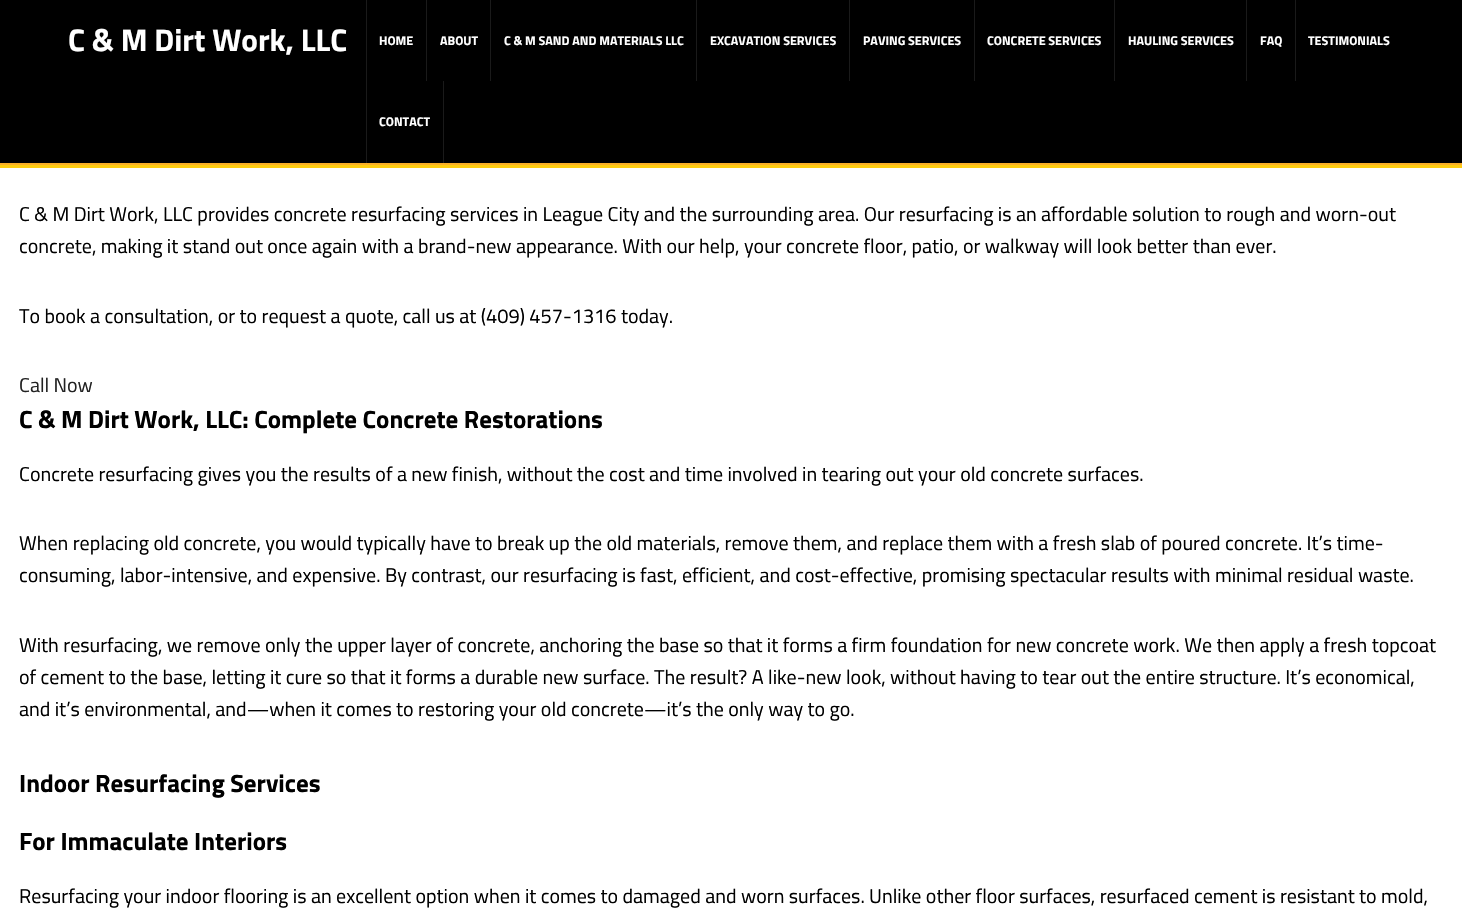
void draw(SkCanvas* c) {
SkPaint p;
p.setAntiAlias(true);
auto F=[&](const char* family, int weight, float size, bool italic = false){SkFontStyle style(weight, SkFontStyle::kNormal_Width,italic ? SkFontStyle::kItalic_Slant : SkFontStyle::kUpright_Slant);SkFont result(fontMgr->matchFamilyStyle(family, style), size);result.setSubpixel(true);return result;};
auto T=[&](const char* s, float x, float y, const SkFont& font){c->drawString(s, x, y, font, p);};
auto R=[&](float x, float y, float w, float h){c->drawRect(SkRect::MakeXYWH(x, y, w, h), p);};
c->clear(0xffffffff);
p.setColor(0xff000000);
R(0,0,1462,163);
p.setColor(0xfffbaf28);
R(0,163,1462,2);
auto f1 = F("Titillium Web",700,31.25);
p.setColor(0xffffffff);
T("C & M Dirt Work, LLC",68,51,f1);
p.setColor(0xff1a1a1a);
R(366,0,1,163);
auto f2 = F("Titillium Web",700,12.5);
p.setColor(0xffffffff);
T("HOME",379,45,f2);
p.setColor(0xff1a1a1a);
R(426,0,1,81);
p.setColor(0xffffffff);
T("ABOUT",440,45,f2);
p.setColor(0xff1a1a1a);
R(490,0,1,81);
p.setColor(0xffffffff);
T("C & M SAND AND MATERIALS LLC",504,45,f2);
p.setColor(0xff1a1a1a);
R(696,0,1,81);
p.setColor(0xffffffff);
T("EXCAVATION SERVICES",710,45,f2);
p.setColor(0xff1a1a1a);
R(849,0,1,81);
p.setColor(0xffffffff);
T("PAVING SERVICES",863,45,f2);
p.setColor(0xff1a1a1a);
R(974,0,1,81);
p.setColor(0xffffffff);
T("CONCRETE SERVICES",987,45,f2);
p.setColor(0xff1a1a1a);
R(1114,0,1,81);
p.setColor(0xffffffff);
T("HAULING SERVICES",1128,45,f2);
p.setColor(0xff1a1a1a);
R(1246,0,1,81);
p.setColor(0xffffffff);
T("FAQ",1260,45,f2);
p.setColor(0xff1a1a1a);
R(1295,0,1,81);
p.setColor(0xffffffff);
T("TESTIMONIALS",1308,45,f2);
p.setColor(0xff1a1a1a);
R(443,81,1,82);
p.setColor(0xffffffff);
T("CONTACT",379,126,f2);
p.setColor(0xffffcd11);
R(0,165,1462,3);
auto f3 = F("Titillium Web",400,20);
p.setColor(0xff000000);
T("C & M Dirt Work, LLC provides concrete resurfacing services in League City and the surrounding area. Our resurfacing is an affordable solution to rough and worn-out",19,221,f3);
T("concrete, making it stand out once again with a brand-new appearance. With our help, your concrete floor, patio, or walkway will look better than ever.",19,253,f3);
T("To book a consultation, or to request a quote, call us at (409) 457-1316 today.",19,323,f3);
p.setColor(0xff222222);
T("Call Now",19,392,f3);
auto f4 = F("Titillium Web",700,25);
p.setColor(0xff000000);
T("C & M Dirt Work, LLC: Complete Concrete Restorations",19,428,f4);
T("Concrete resurfacing gives you the results of a new finish, without the cost and time involved in tearing out your old concrete surfaces.",19,481,f3);
T("When replacing old concrete, you would typically have to break up the old materials, remove them, and replace them with a fresh slab of poured concrete. It’s time-",19,550,f3);
T("consuming, labor-intensive, and expensive. By contrast, our resurfacing is fast, efficient, and cost-effective, promising spectacular results with minimal residual waste.",19,582,f3);
T("With resurfacing, we remove only the upper layer of concrete, anchoring the base so that it forms a firm foundation for new concrete work. We then apply a fresh topcoat",19,652,f3);
T("of cement to the base, letting it cure so that it forms a durable new surface. The result? A like-new look, without having to tear out the entire structure. It’s economical,",19,684,f3);
T("and it’s environmental, and—when it comes to restoring your old concrete—it’s the only way to go.",19,716,f3);
T("Indoor Resurfacing Services",19,792,f4);
T("For Immaculate Interiors",19,850,f4);
T("Resurfacing your indoor flooring is an excellent option when it comes to damaged and worn surfaces. Unlike other floor surfaces, resurfaced cement is resistant to mold,",19,903,f3);
}
